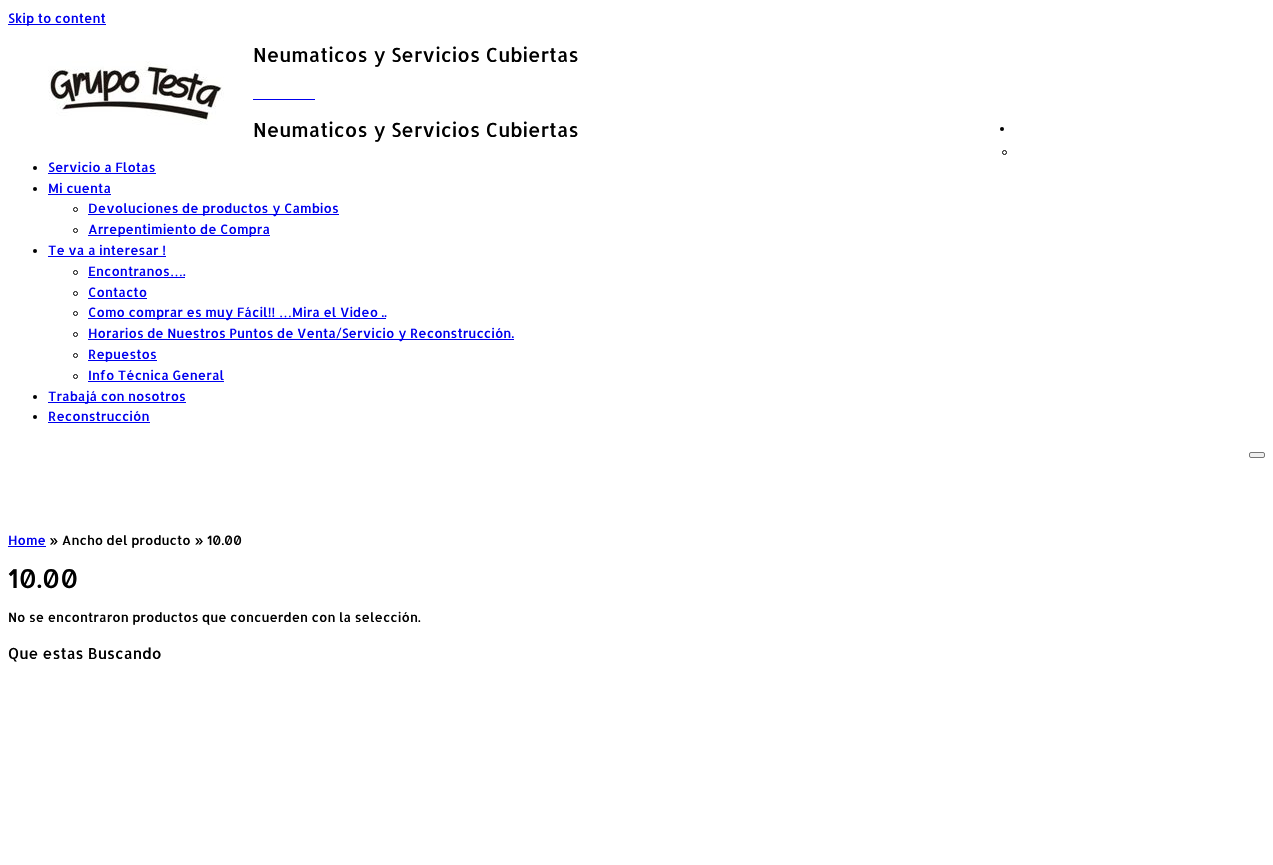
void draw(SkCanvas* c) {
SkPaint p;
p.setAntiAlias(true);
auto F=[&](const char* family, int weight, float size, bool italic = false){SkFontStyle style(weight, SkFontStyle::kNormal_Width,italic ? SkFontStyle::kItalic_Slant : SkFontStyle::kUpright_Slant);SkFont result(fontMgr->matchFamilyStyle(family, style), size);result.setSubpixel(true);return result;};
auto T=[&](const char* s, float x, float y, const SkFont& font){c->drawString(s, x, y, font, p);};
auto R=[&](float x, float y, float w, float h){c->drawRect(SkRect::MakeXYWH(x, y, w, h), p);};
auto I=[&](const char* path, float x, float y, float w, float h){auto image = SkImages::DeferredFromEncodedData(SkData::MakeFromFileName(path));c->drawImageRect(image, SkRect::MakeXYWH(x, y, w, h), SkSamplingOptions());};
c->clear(0xffffffff);
p.setColor(0xff0000ee);
R(8,24,98,1);
auto f1 = F("Allerta",400,13);
T("Skip to content",8,23,f1);
auto f2 = F("Allerta",400,19.5);
p.setColor(0xff000000);
T("Neumaticos y Servicios Cubiertas",253,62,f2);
I("1.png",48,61,176,64);
p.setColor(0xff0000ee);
R(253,99,62,1);
p.setColor(0xff000000);
T("Neumaticos y Servicios Cubiertas",253,137,f2);
c->drawCircle(1002,129,2,p);
p.setStroke(true);
p.setStrokeWidth(1);
c->drawCircle(1004.5,152.5,2,p);
p.setStroke(false);
c->drawCircle(35,168,2,p);
p.setColor(0xff0000ee);
T("Servicio a Flotas",48,172,f1);
R(48,173,108,1);
p.setColor(0xff000000);
c->drawCircle(35,189,2,p);
p.setColor(0xff0000ee);
T("Mi cuenta",48,193,f1);
R(48,194,63,1);
p.setStroke(true);
p.setColor(0xff000000);
c->drawCircle(75.5,209.5,2,p);
p.setStroke(false);
p.setColor(0xff0000ee);
R(88,214,251,1);
T("Devoluciones de productos y Cambios",88,213,f1);
p.setStroke(true);
p.setColor(0xff000000);
c->drawCircle(75.5,230.5,2,p);
p.setStroke(false);
p.setColor(0xff0000ee);
R(88,235,182,1);
T("Arrepentimiento de Compra",88,234,f1);
p.setColor(0xff000000);
c->drawCircle(35,251,2,p);
p.setColor(0xff0000ee);
T("Te va a interesar !",48,255,f1);
R(48,256,118,1);
p.setStroke(true);
p.setColor(0xff000000);
c->drawCircle(75.5,272.5,2,p);
p.setStroke(false);
p.setColor(0xff0000ee);
T("Encontranos",88,276,f1);
auto f3 = F("Liberation Serif",400,13);
T("…",170,276,f3);
R(88,277,97,1);
T(".",183,276,f1);
p.setStroke(true);
p.setColor(0xff000000);
c->drawCircle(75.5,293.5,2,p);
p.setStroke(false);
p.setColor(0xff0000ee);
T("Contacto",88,297,f1);
R(88,298,59,1);
p.setStroke(true);
p.setColor(0xff000000);
c->drawCircle(75.5,313.5,2,p);
p.setStroke(false);
p.setColor(0xff0000ee);
R(88,318,298,1);
T("Como comprar es muy Fácil!!",88,317,f1);
T("Mira el Video ..",292,317,f1);
T("…",279,317,f3);
p.setStroke(true);
p.setColor(0xff000000);
c->drawCircle(75.5,334.5,2,p);
p.setStroke(false);
p.setColor(0xff0000ee);
R(88,339,426,1);
T("Horarios de Nuestros Puntos de Venta/Servicio y Reconstrucción.",88,338,f1);
p.setStroke(true);
p.setColor(0xff000000);
c->drawCircle(75.5,355.5,2,p);
p.setStroke(false);
p.setColor(0xff0000ee);
R(88,360,69,1);
T("Repuestos",88,359,f1);
p.setStroke(true);
p.setColor(0xff000000);
c->drawCircle(75.5,376.5,2,p);
p.setStroke(false);
p.setColor(0xff0000ee);
T("Info Técnica General",88,380,f1);
R(88,381,136,1);
p.setColor(0xff000000);
c->drawCircle(35,397,2,p);
p.setColor(0xff0000ee);
R(48,402,138,1);
T("Trabajá con nosotros",48,401,f1);
p.setColor(0xff000000);
c->drawCircle(35,417,2,p);
p.setColor(0xff0000ee);
T("Reconstrucción",48,421,f1);
R(48,422,102,1);
p.setColor(0xffefefef);
c->drawRoundRect(SkRect::MakeXYWH(1249.5,452.5,15,5),1.5,1.5,p);
p.setStroke(true);
p.setColor(0xff767676);
c->drawRoundRect(SkRect::MakeXYWH(1249.5,452.5,15,5),1.5,1.5,p);
p.setStroke(false);
p.setColor(0xff0000ee);
T("Home",8,545,f1);
R(8,546,38,1);
p.setColor(0xff000000);
T("» Ancho del producto » 10.00",49,545,f1);
auto f4 = F("Allerta",400,26);
T("10.00",8,588,f4);
T("No se encontraron productos que concuerden con la selección.",8,622,f1);
auto f5 = F("Allerta",400,15.25);
T("Que estas Buscando",8,659,f5);
}
